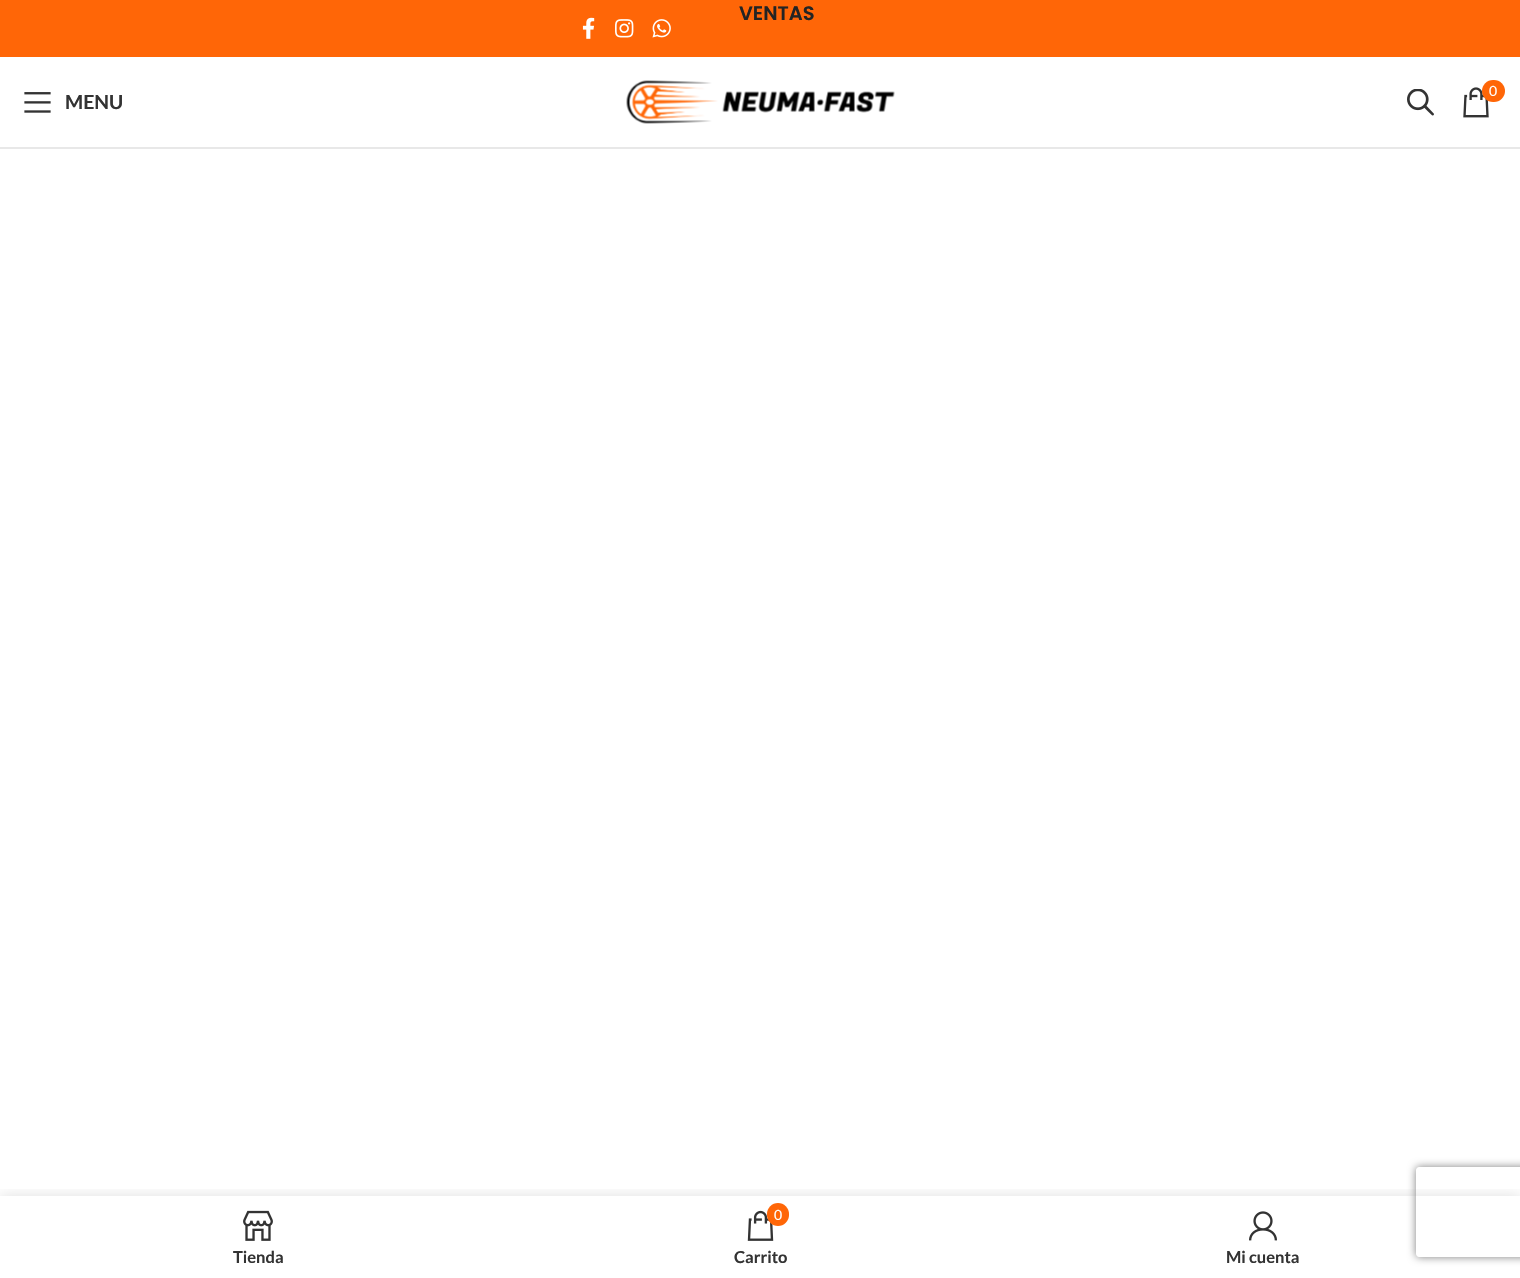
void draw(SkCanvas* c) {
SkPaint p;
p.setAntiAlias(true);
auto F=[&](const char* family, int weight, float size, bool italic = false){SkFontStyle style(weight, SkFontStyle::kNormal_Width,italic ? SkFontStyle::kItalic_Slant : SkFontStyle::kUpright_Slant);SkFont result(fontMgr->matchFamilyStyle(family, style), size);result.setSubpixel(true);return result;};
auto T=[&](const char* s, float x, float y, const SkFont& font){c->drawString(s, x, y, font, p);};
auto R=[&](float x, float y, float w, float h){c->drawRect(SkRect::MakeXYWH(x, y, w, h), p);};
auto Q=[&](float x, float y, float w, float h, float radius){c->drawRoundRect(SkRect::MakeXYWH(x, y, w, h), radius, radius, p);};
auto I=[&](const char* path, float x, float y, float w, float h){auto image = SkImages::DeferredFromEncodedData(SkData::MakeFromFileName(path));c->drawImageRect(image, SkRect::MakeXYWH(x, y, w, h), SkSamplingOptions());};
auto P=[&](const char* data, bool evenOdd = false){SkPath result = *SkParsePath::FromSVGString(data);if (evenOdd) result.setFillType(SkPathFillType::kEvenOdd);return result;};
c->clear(0xffffffff);
p.setColor(0xffff6607);
R(0,0,1520,57);
auto f1 = F("Poppins",600,19.5);
p.setColor(0xff242424);
T("VENTAS",739,20,f1);
I("1.png",582,17,13,22);
I("2.png",615,19,19,19);
I("3.png",652,19,19,19);
p.setColor(0xffe8e8e8);
R(0,147,1520,2);
I("4.png",626,80,269,44);
I("5.png",1407,89,27,27);
I("6.png",1463,87,26,31);
p.setColor(0xffff6607);
Q(1482,80,23,22,11);
auto f2 = F("Lato",400,14);
p.setColor(0xffffffff);
T("0",1489,96,f2);
I("7.png",24,92,27,21);
auto f3 = F("Lato",700,19.5);
p.setColor(0xff333333);
T("MENU",65,109,f3);
c->save();
c->clipRect(SkRect::MakeXYWH(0,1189,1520,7));
p.setColor(0x1f000000);
p.setMaskFilter(SkMaskFilter::MakeBlur(kNormal_SkBlurStyle, 7));
c->drawRect(SkRect::MakeXYWH(0,1196,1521,82),p);
p.setMaskFilter(nullptr);
c->restore();
I("8.png",243,1210,30,31);
auto f4 = F("Lato",700,16.5);
p.setColor(0xff333333);
T("Tienda",233,1263,f4);
I("9.png",747,1210,27,31);
p.setColor(0xffff6607);
Q(767,1203,22,23,11);
p.setColor(0xffffffff);
T("0",774,1220,f2);
p.setColor(0xff333333);
T("Carrito",734,1263,f4);
I("10.png",1249,1211,28,30);
T("Mi cuenta",1226,1263,f4);
c->save();
c->clipPath(P("M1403 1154h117v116h-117zm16 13h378c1.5 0 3 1.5 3 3v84c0 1.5-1.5 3-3 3h-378c-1.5 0-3-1.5-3-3v-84c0-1.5 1.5-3 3-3z",true),true);
p.setColor(0xff808080);
p.setMaskFilter(SkMaskFilter::MakeBlur(kNormal_SkBlurStyle, 4));
c->drawRoundRect(SkRect::MakeXYWH(1416,1167,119,90),3,3,p);
p.setMaskFilter(nullptr);
c->restore();
}
